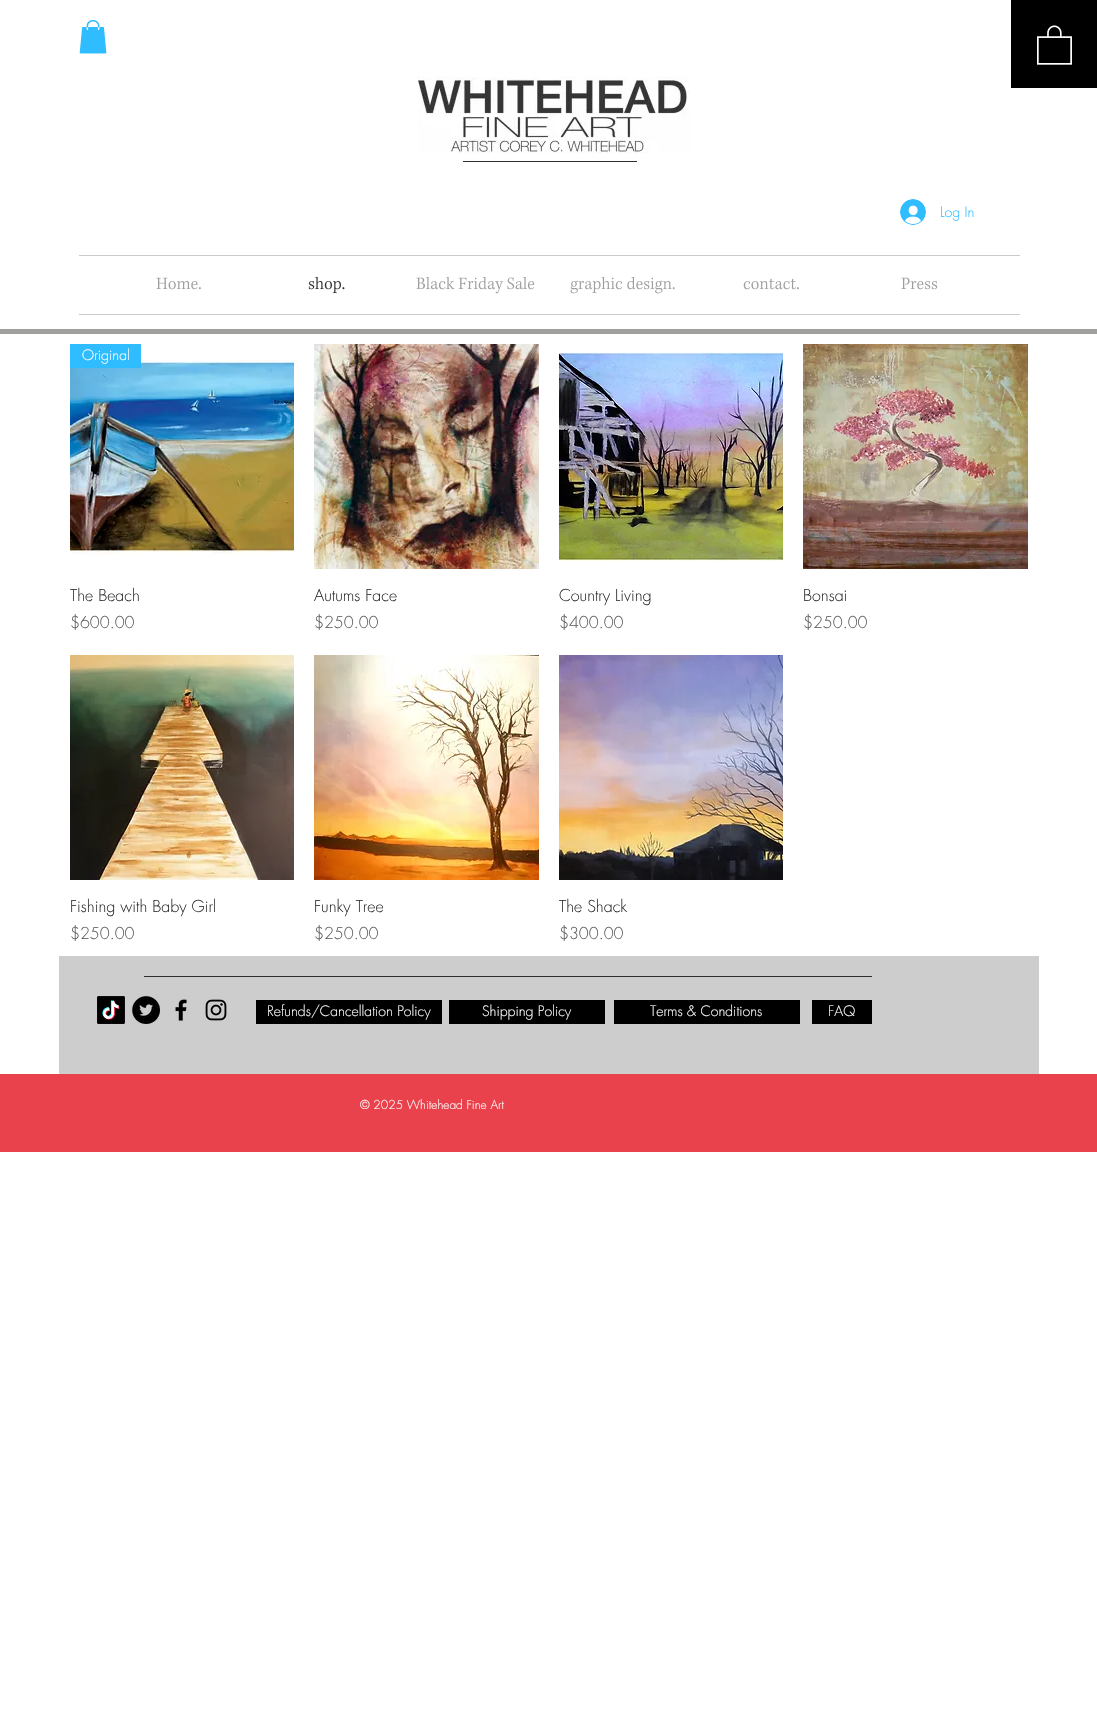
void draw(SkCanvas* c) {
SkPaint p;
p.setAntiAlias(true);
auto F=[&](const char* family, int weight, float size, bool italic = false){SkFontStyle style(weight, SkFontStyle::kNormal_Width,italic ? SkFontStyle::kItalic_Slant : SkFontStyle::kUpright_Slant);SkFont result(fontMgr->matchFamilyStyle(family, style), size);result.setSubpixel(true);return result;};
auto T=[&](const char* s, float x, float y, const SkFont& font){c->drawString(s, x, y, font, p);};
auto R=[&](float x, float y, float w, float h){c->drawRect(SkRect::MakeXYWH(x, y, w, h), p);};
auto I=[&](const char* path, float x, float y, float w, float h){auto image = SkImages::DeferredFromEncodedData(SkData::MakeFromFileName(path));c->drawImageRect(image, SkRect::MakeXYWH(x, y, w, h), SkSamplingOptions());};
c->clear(0xffffffff);
p.setColor(0xff000000);
R(1011,0,86,88);
I("1.png",1037,25,35,40);
I("2.png",79,20,28,34);
I("3.png",418,77,272,77);
p.setColor(0xff2f2e2e);
R(463,161,174,1);
I("4.png",900,199,26,26);
auto f1 = F("futura",300,14);
p.setColor(0xff30bdff);
T("Log In",940,217,f1);
p.setColor(0xffcacaca);
R(79,255,941,1);
R(79,314,941,1);
I("5.png",156,277,45,13);
I("6.png",308,277,37,17);
I("7.png",416,277,119,17);
I("8.png",570,277,105,17);
I("9.png",743,278,56,12);
I("10.png",901,277,37,13);
p.setColor(0xffa0a09f);
R(0,329,1097,5);
I("11.png",70,360,224,196);
p.setColor(0xff30bdff);
R(70,344,71,24);
p.setColor(0xffffffff);
T("Original",82,360,f1);
auto f2 = F("futura",300,16);
p.setColor(0xff2f2e2e);
T("The Beach",70,601,f2);
p.setColor(0xff605e5e);
T("$600.00",70,628,f2);
I("12.png",314,344,225,225);
p.setColor(0xff2f2e2e);
T("Autums Face",314,601,f2);
p.setColor(0xff605e5e);
T("$250.00",314,628,f2);
I("13.png",559,352,224,209);
p.setColor(0xff2f2e2e);
T("Country Living",559,601,f2);
p.setColor(0xff605e5e);
T("$400.00",559,628,f2);
I("14.png",803,344,225,225);
p.setColor(0xff2f2e2e);
T("Bonsai",803,601,f2);
p.setColor(0xff605e5e);
T("$250.00",803,628,f2);
I("15.png",70,655,224,225);
p.setColor(0xff2f2e2e);
T("Fishing with Baby Girl",70,912,f2);
p.setColor(0xff605e5e);
T("$250.00",70,939,f2);
I("16.png",314,655,225,225);
p.setColor(0xff2f2e2e);
T("Funky Tree",314,912,f2);
p.setColor(0xff605e5e);
T("$250.00",314,939,f2);
I("17.png",559,655,224,225);
p.setColor(0xff2f2e2e);
T("The Shack",559,912,f2);
p.setColor(0xff605e5e);
T("$300.00",559,939,f2);
p.setColor(0xffcdcdcd);
R(59,956,980,118);
p.setColor(0xff2f2e2e);
R(144,976,728,1);
I("18.png",97,996,28,28);
I("19.png",132,996,28,28);
I("20.png",175,999,12,22);
I("21.png",205,999,22,22);
p.setColor(0xff000000);
R(256,1000,186,24);
p.setColor(0xffffffff);
T("Refunds/Cancellation Policy",267,1016,f1);
p.setColor(0xff000000);
R(449,1000,156,24);
p.setColor(0xffffffff);
T("Shipping Policy",482,1016,f1);
p.setColor(0xff000000);
R(614,1000,186,24);
p.setColor(0xffffffff);
T("Terms & Conditions",650,1016,f1);
p.setColor(0xff000000);
R(812,1000,60,24);
p.setColor(0xffffffff);
T("FAQ",828,1016,f1);
p.setColor(0xffea424d);
R(0,1074,1097,78);
auto f3 = F("futura",300,12);
p.setColor(0xffffffff);
T("© 2025 Whitehead Fine Art",360,1109,f3);
}
